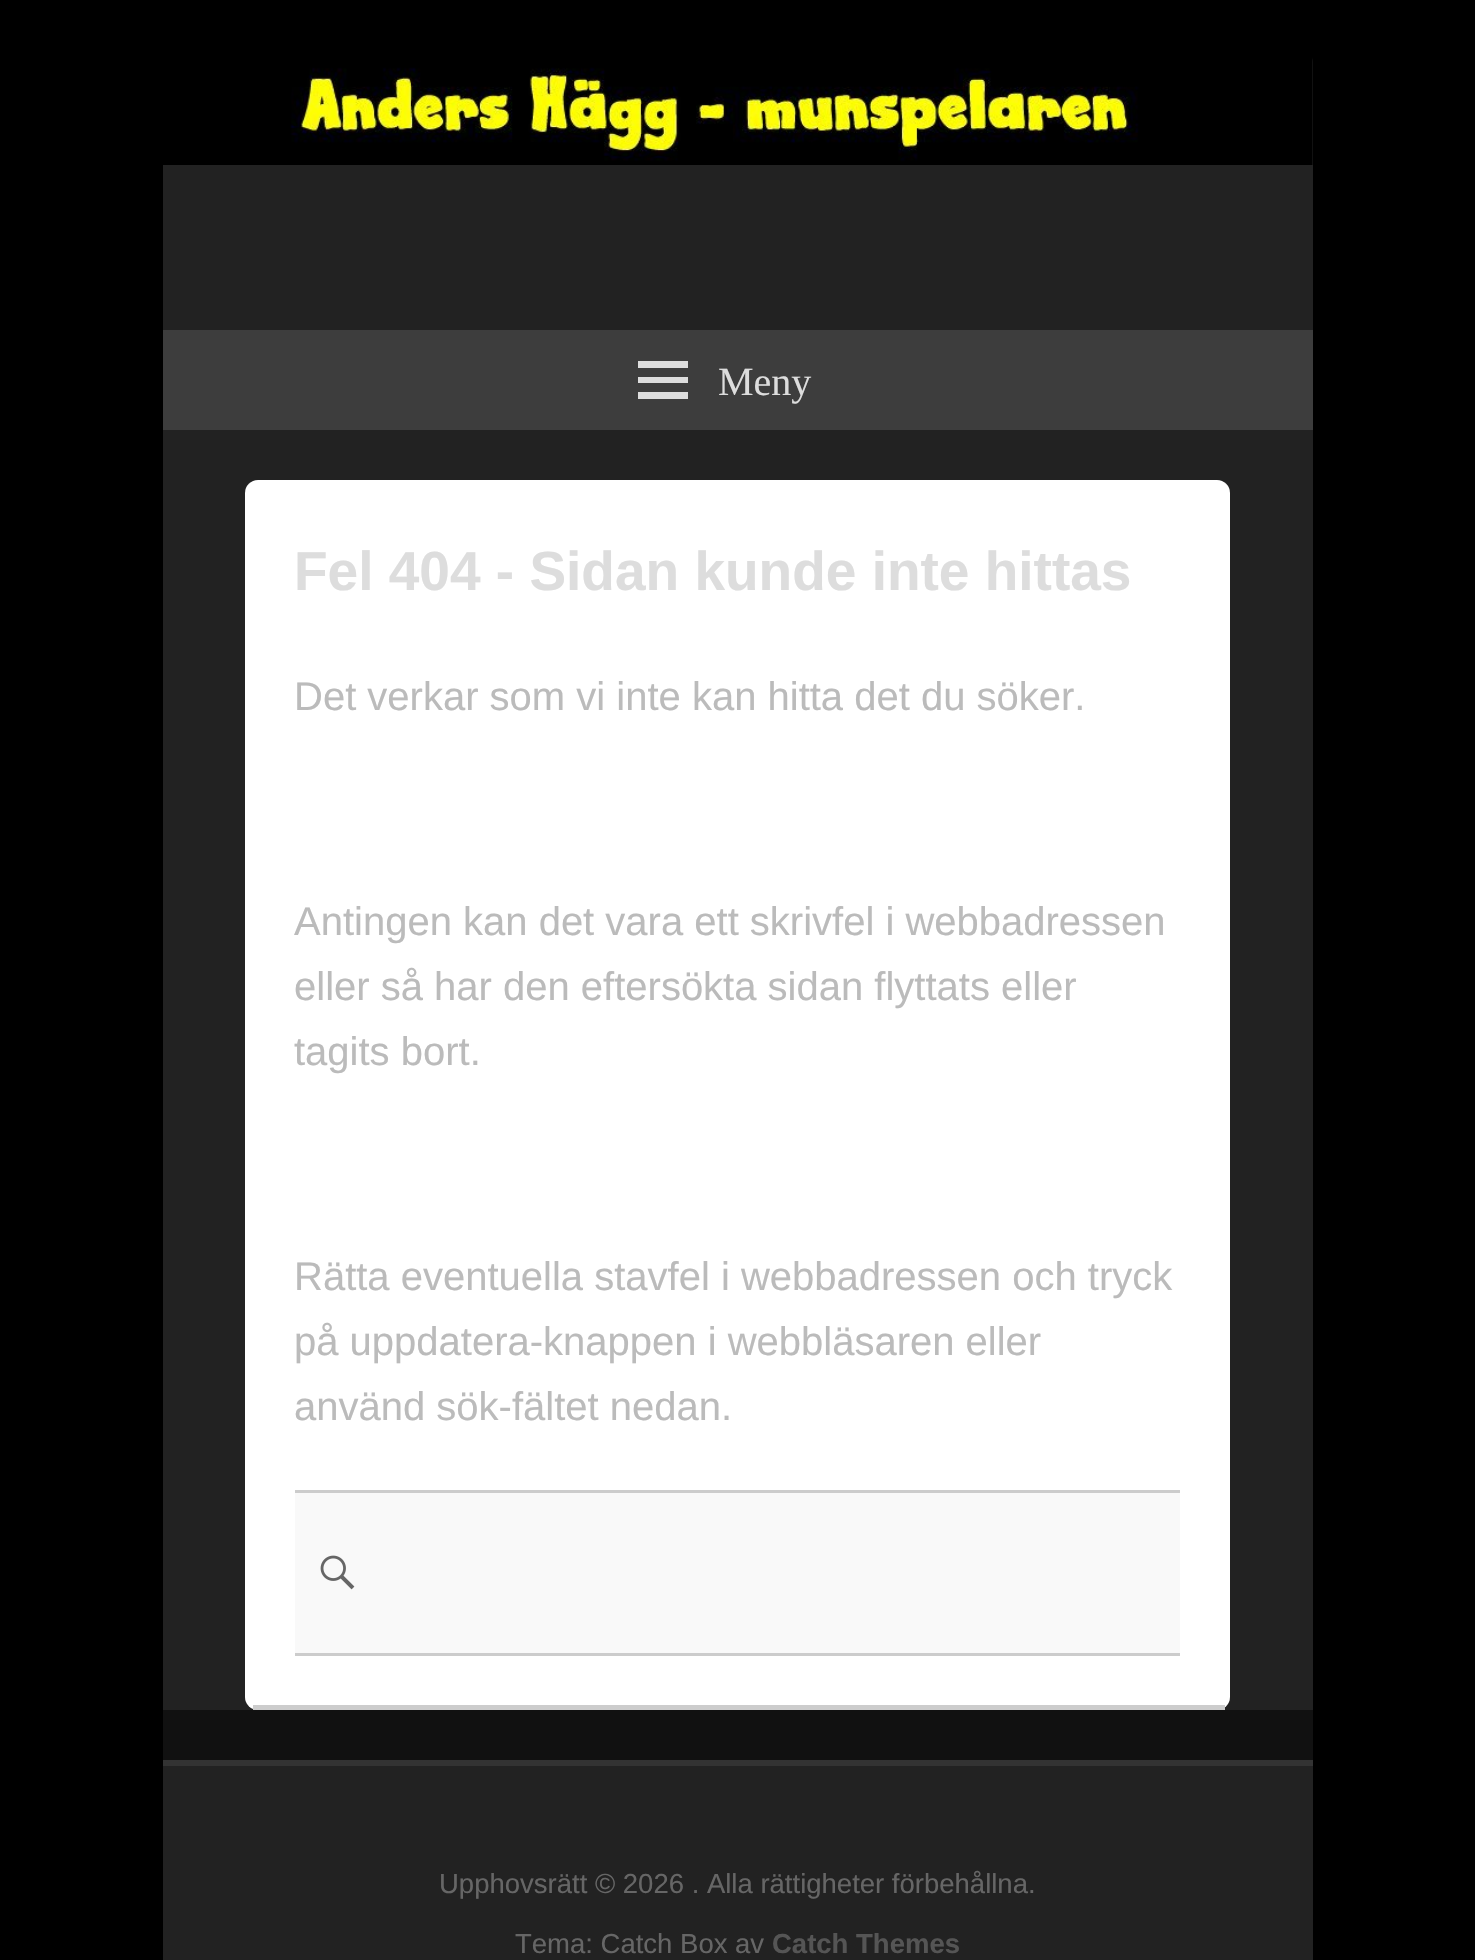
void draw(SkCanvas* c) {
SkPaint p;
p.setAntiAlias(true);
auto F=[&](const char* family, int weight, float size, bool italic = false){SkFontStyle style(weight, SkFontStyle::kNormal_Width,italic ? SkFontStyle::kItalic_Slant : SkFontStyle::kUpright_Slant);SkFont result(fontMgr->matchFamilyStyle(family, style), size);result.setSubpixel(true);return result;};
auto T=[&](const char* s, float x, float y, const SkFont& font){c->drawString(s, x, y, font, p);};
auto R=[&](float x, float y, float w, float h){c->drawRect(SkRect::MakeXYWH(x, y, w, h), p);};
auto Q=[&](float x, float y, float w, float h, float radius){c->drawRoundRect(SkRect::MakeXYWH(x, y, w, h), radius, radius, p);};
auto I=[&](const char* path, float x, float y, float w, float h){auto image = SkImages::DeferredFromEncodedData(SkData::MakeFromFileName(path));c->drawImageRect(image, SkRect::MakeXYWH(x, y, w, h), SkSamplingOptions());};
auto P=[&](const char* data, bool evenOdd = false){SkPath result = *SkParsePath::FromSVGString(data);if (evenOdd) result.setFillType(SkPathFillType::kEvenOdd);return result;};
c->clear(0xff000000);
p.setColor(0xff111111);
Q(163,50,1150,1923,13);
p.setColor(0xff222222);
c->drawPath(P("M176 50h1124c7 0 13 6 13 13v367h-1150v-367c0-7 6-13 13-13z"),p);
I("1.png",163,50,1150,115);
p.setColor(0xff3d3d3d);
R(163,330,1150,100);
p.setColor(0xffdddddd);
c->drawPath(P("M638 399v-7h50v7zm0-38h50v7h-50zm0 22v-6h50v6z"),p);
auto f1 = F("Liberation Serif",400,40);
T("Meny",718,395,f1);
p.setColor(0xff222222);
R(163,430,1150,1280);
p.setColor(0xffffffff);
Q(245,480,985,1230,13);
p.setColor(0xffcccccc);
R(253,1705,972,5);
auto f2 = F("Liberation Sans",700,55);
p.setColor(0xffdddddd);
T("Fel 404 - Sidan kunde inte hittas",294,590,f2);
auto f3 = F("Liberation Sans",400,40);
p.setColor(0xffbbbbbb);
T("Det verkar som vi inte kan hitta det du söker.",294,710,f3);
T("Antingen kan det vara ett skrivfel i webbadressen",294,935,f3);
T("eller så har den eftersökta sidan flyttats eller",294,1000,f3);
T("tagits bort.",294,1065,f3);
T("Rätta eventuella stavfel i webbadressen och tryck",294,1290,f3);
T("på uppdatera-knappen i webbläsaren eller",294,1355,f3);
T("använd sök-fältet nedan.",294,1420,f3);
p.setColor(0xfff9f9f9);
R(295,1493,885,160);
p.setColor(0xffcccccc);
R(295,1490,885,3);
R(295,1653,885,3);
I("2.png",320,1555,35,35);
p.setColor(0xff333333);
R(163,1760,1150,6);
p.setColor(0xff222222);
R(163,1766,1150,194);
auto f4 = F("Liberation Sans",400,27.5);
p.setColor(0xff666666);
T("Upphovsrätt © 2026 . Alla rättigheter förbehållna.",439,1893,f4);
T("Tema: Catch Box av",515,1953,f4);
auto f5 = F("Liberation Sans",700,27.5);
p.setColor(0xff555555);
T("Catch Themes",772,1953,f5);
}
